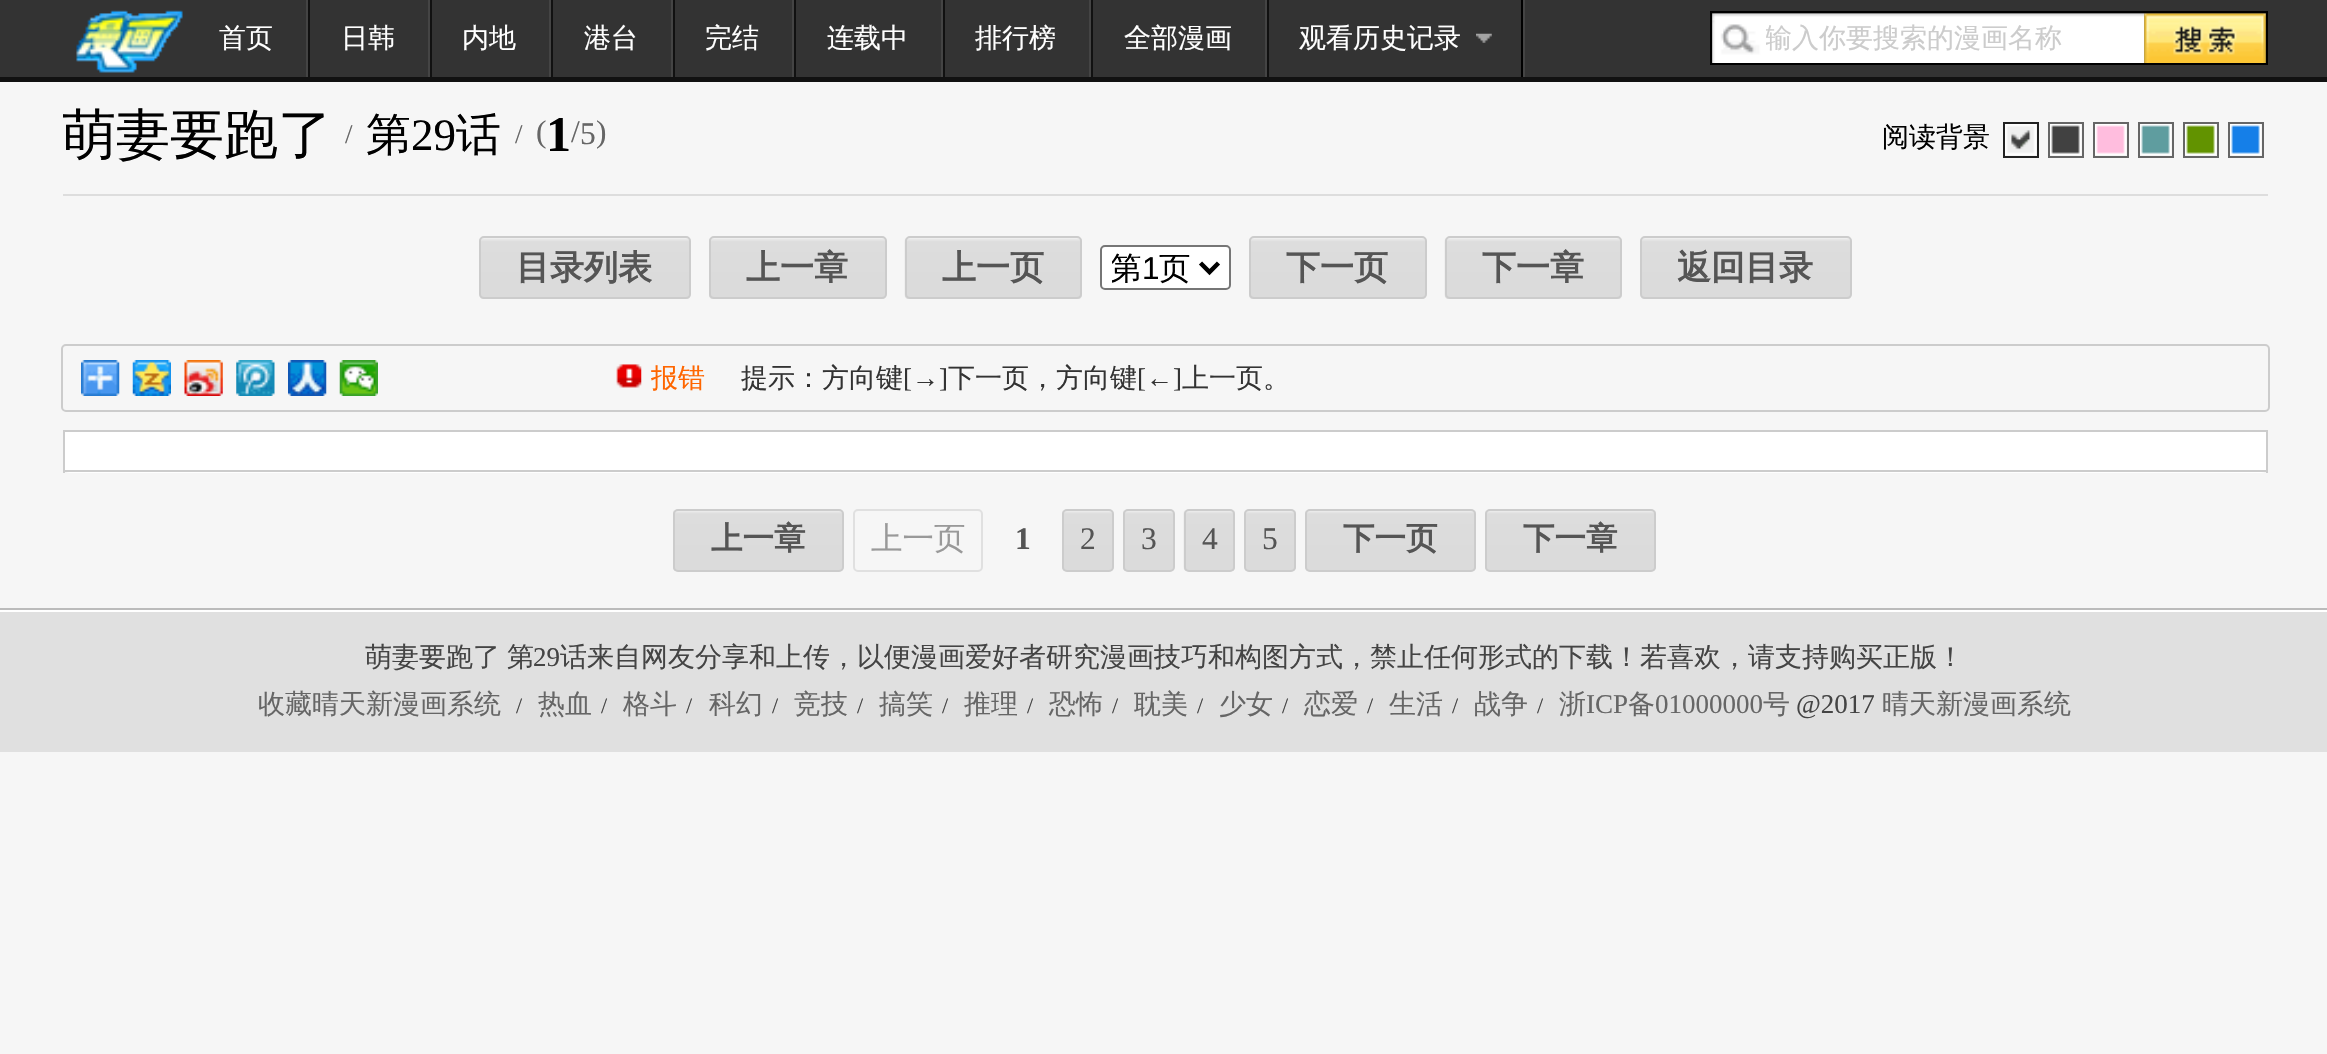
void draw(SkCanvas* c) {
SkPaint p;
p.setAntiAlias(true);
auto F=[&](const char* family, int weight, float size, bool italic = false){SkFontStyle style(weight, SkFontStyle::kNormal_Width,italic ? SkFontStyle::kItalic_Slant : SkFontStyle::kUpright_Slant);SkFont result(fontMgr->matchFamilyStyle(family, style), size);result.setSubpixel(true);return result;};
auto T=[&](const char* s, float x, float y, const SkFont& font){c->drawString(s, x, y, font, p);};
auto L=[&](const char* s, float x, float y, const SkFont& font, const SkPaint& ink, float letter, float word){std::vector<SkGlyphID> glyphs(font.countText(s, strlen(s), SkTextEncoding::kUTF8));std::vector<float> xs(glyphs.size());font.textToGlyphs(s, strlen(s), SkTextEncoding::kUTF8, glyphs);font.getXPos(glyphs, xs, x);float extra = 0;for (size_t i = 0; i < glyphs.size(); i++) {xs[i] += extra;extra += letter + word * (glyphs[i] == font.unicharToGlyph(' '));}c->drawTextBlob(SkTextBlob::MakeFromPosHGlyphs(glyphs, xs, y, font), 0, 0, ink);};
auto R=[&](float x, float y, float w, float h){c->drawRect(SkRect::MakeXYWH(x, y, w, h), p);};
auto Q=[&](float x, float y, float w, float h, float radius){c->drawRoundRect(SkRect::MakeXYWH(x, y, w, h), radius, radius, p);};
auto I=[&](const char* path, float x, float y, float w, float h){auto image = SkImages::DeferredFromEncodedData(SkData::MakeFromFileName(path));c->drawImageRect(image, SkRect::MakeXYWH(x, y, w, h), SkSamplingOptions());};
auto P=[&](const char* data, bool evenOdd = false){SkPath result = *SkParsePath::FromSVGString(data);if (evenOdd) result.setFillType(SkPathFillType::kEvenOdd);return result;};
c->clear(0xfff6f6f6);
p.setColor(0xff333333);
R(0,0,2327,77);
p.setColor(0xff111111);
R(0,77,2327,5);
p.setColor(0xff444444);
R(306,0,2,77);
I("1.png",76,10,107,63);
auto f1 = F("WenQuanYi Zen Hei",500,27);
p.setColor(0xffffffff);
T("首页",219,47,f1);
p.setColor(0xff444444);
R(428,0,2,77);
p.setColor(0xff111111);
R(308,0,2,77);
p.setColor(0xffffffff);
T("日韩",341,47,f1);
p.setColor(0xff444444);
R(549,0,2,77);
p.setColor(0xff111111);
R(430,0,2,77);
p.setColor(0xffffffff);
T("内地",462,47,f1);
p.setColor(0xff444444);
R(671,0,2,77);
p.setColor(0xff111111);
R(551,0,2,77);
p.setColor(0xffffffff);
T("港台",584,47,f1);
p.setColor(0xff444444);
R(792,0,2,77);
p.setColor(0xff111111);
R(673,0,2,77);
p.setColor(0xffffffff);
T("完结",705,47,f1);
p.setColor(0xff444444);
R(941,0,2,77);
p.setColor(0xff111111);
R(794,0,2,77);
p.setColor(0xffffffff);
T("连载中",827,47,f1);
p.setColor(0xff444444);
R(1089,0,2,77);
p.setColor(0xff111111);
R(943,0,2,77);
p.setColor(0xffffffff);
T("排行榜",975,47,f1);
p.setColor(0xff444444);
R(1265,0,2,77);
p.setColor(0xff111111);
R(1091,0,2,77);
p.setColor(0xffffffff);
T("全部漫画",1124,47,f1);
p.setColor(0xff444444);
R(1523,0,2,77);
p.setColor(0xff111111);
R(1267,0,2,77);
p.setColor(0xff000000);
R(1521,0,2,77);
p.setColor(0xffffffff);
T("观看历史记录",1299,47,f1);
I("2.png",1476,33,16,10);
p.setStroke(true);
p.setStrokeWidth(2);
p.setColor(0xff000000);
c->drawRect(SkRect::MakeXYWH(1711,12,556,52),p);
I("3.png",1712,13,433,50);
c->save();
c->clipRect(SkRect::MakeXYWH(1766,14,365,49));
p.setStroke(false);
p.setColor(0xffcccccc);
T("输入你要搜索的漫画名称",1765,47,f1);
c->restore();
I("4.png",2144,13,122,50);
p.setColor(0xffdddddd);
R(63,194,2205,2);
auto f2 = F("WenQuanYi Zen Hei",500,54);
p.setColor(0xff000000);
T("萌妻要跑了",62,153,f2);
auto f3 = F("Liberation Serif",400,27);
p.setColor(0xff666666);
T("/",345,143,f3);
auto f4 = F("WenQuanYi Zen Hei",500,45);
p.setColor(0xff000000);
T("第",366,150,f4);
auto f5 = F("Liberation Serif",400,45);
T("29",411,150,f5);
T("话",456,150,f4);
p.setColor(0xff666666);
T("/",515,143,f3);
auto f6 = F("Liberation Serif",400,31.5);
T("(",536,142,f6);
auto f7 = F("Liberation Serif",700,50);
p.setColor(0xff000000);
T("1",546,151,f7);
p.setColor(0xff666666);
T("/",571,142,f6);
T("5",580,144,f6);
T(")",596,142,f6);
p.setColor(0xff000000);
T("阅读背景",1882,146,f1);
I("5.png",2005,124,31,31);
p.setStroke(true);
p.setColor(0xff222222);
c->drawRect(SkRect::MakeXYWH(2004,123,34,34),p);
I("6.png",2050,124,31,31);
p.setColor(0xff666666);
c->drawRect(SkRect::MakeXYWH(2049,123,34,34),p);
I("7.png",2095,124,31,31);
c->drawRect(SkRect::MakeXYWH(2094,123,34,34),p);
I("8.png",2140,124,31,31);
c->drawRect(SkRect::MakeXYWH(2139,123,34,34),p);
I("9.png",2185,124,31,31);
c->drawRect(SkRect::MakeXYWH(2184,123,34,34),p);
I("10.png",2230,124,31,31);
c->drawRect(SkRect::MakeXYWH(2229,123,34,34),p);
I("11.png",479,238,212,61);
p.setColor(0xffcccccc);
c->drawRoundRect(SkRect::MakeXYWH(480,237,210,61),4,4,p);
auto f8 = F("WenQuanYi Zen Hei",700,34);
p.setStroke(false);
p.setColor(0xff555555);
T("目录列表",516,279,f8);
I("12.png",709,238,178,61);
p.setStroke(true);
p.setColor(0xffcccccc);
c->drawRoundRect(SkRect::MakeXYWH(710,237,176,61),4,4,p);
p.setStroke(false);
p.setColor(0xff555555);
T("上一章",746,279,f8);
I("13.png",904,238,178,61);
p.setStroke(true);
p.setColor(0xffcccccc);
c->drawRoundRect(SkRect::MakeXYWH(906,237,175,61),4,4,p);
p.setStroke(false);
p.setColor(0xff555555);
T("上一页",942,279,f8);
p.setColor(0xffffffff);
c->drawRoundRect(SkRect::MakeXYWH(1101,246,129,43),4,4,p);
p.setStroke(true);
p.setColor(0xff767676);
c->drawRoundRect(SkRect::MakeXYWH(1101,246,129,43),4,4,p);
p.setStrokeWidth(4.5);
p.setColor(0xff000000);
c->drawPath(P("M1200.5 263l9 9l9-9"),p);
c->save();
c->clipRect(SkRect::MakeXYWH(1112,248,81,40));
auto f9 = F("WenQuanYi Zen Hei",500,31.5);
p.setStroke(false);
T("第",1110,279,f9);
c->restore();
auto f10 = F("Liberation Sans",400,31.5);
T("1",1142,279,f10);
T("页",1159,279,f9);
I("12.png",1249,238,178,61);
p.setStroke(true);
p.setStrokeWidth(2);
p.setColor(0xffcccccc);
c->drawRoundRect(SkRect::MakeXYWH(1250,237,176,61),4,4,p);
p.setStroke(false);
p.setColor(0xff555555);
T("下一页",1286,279,f8);
I("13.png",1444,238,178,61);
p.setStroke(true);
p.setColor(0xffcccccc);
c->drawRoundRect(SkRect::MakeXYWH(1446,237,175,61),4,4,p);
p.setStroke(false);
p.setColor(0xff555555);
T("下一章",1482,279,f8);
I("11.png",1640,238,212,61);
p.setStroke(true);
p.setColor(0xffcccccc);
c->drawRoundRect(SkRect::MakeXYWH(1641,237,210,61),4,4,p);
p.setStroke(false);
p.setColor(0xff555555);
T("返回目录",1677,279,f8);
p.setStroke(true);
p.setColor(0xffcccccc);
c->drawRoundRect(SkRect::MakeXYWH(62,345,2207,66),4,4,p);
I("14.png",81,360,39,36);
I("15.png",132,360,39,36);
I("16.png",184,360,39,36);
I("17.png",236,360,39,36);
I("18.png",288,360,39,36);
I("19.png",339,360,39,36);
I("20.png",616,364,26,24);
p.setStroke(false);
p.setColor(0xffff6600);
T("报错",651,387,f1);
p.setColor(0xff333333);
T("提示：方向键",741,387,f1);
T("[→]",903,387,f3);
T("下一页，方向键",948,387,f1);
T("[←]",1137,387,f3);
T("上一页。",1182,387,f1);
p.setColor(0xffffffff);
Q(63,430,2205,43,7);
p.setColor(0xffcccccc);
R(63,430,2205,2);
R(2266,430,2,43);
R(63,470,2205,2);
R(63,430,2,43);
I("21.png",673,510,171,62);
p.setStroke(true);
c->drawRoundRect(SkRect::MakeXYWH(674,510,169,61),4,4,p);
auto f11 = F("WenQuanYi Zen Hei",700,31.5);
p.setStroke(false);
p.setColor(0xff555555);
T("上一章",711,549,f11);
p.setStroke(true);
p.setColor(0xffe0e0e0);
c->drawRoundRect(SkRect::MakeXYWH(854,510,128,61),4,4,p);
p.setStroke(false);
p.setColor(0xff999999);
T("上一页",871,549,f9);
auto f12 = F("Liberation Serif",700,31.5);
p.setColor(0xff555555);
T("1",1015,549,f12);
I("22.png",1062,510,52,62);
p.setStroke(true);
p.setColor(0xffcccccc);
c->drawRoundRect(SkRect::MakeXYWH(1063,510,50,61),4,4,p);
p.setStroke(false);
p.setColor(0xff555555);
T("2",1080,549,f6);
I("23.png",1123,510,52,62);
p.setStroke(true);
p.setColor(0xffcccccc);
c->drawRoundRect(SkRect::MakeXYWH(1124,510,50,61),4,4,p);
p.setStroke(false);
p.setColor(0xff555555);
T("3",1141,549,f6);
I("24.png",1183,510,52,62);
p.setStroke(true);
p.setColor(0xffcccccc);
c->drawRoundRect(SkRect::MakeXYWH(1185,510,49,61),4,4,p);
p.setStroke(false);
p.setColor(0xff555555);
T("4",1202,549,f6);
I("25.png",1244,510,52,62);
p.setStroke(true);
p.setColor(0xffcccccc);
c->drawRoundRect(SkRect::MakeXYWH(1245,510,50,61),4,4,p);
p.setStroke(false);
p.setColor(0xff555555);
T("5",1262,549,f6);
I("26.png",1305,510,171,62);
p.setStroke(true);
p.setColor(0xffcccccc);
c->drawRoundRect(SkRect::MakeXYWH(1306,510,169,61),4,4,p);
p.setStroke(false);
p.setColor(0xff555555);
T("下一页",1343,549,f11);
I("26.png",1485,510,171,62);
p.setStroke(true);
p.setColor(0xffcccccc);
c->drawRoundRect(SkRect::MakeXYWH(1486,510,169,61),4,4,p);
p.setStroke(false);
p.setColor(0xff555555);
T("下一章",1523,549,f11);
p.setColor(0xffbbbbbb);
R(0,608,2327,2);
p.setColor(0xffe0e0e0);
R(0,612,2327,140);
p.setColor(0xffffffff);
R(0,610,2327,2);
p.setColor(0xff444444);
L("萌妻要跑了 第",365,666,f1,p,0,-1);
T("29",533,666,f3);
T("话来自网友分享和上传，以便漫画爱好者研究漫画技巧和构图方式，禁止任何形式的下载！若喜欢，请支持购买正版！",560,666,f1);
p.setColor(0xff666666);
T("收藏晴天新漫画系统",258,713,f1);
auto f13 = F("Liberation Serif",400,22);
p.setColor(0xff444444);
T("/",516,713,f13);
p.setColor(0xff666666);
T("热血",538,713,f1);
p.setColor(0xff444444);
T("/",601,713,f13);
p.setColor(0xff666666);
T("格斗",623,713,f1);
p.setColor(0xff444444);
T("/",686,713,f13);
p.setColor(0xff666666);
T("科幻",709,713,f1);
p.setColor(0xff444444);
T("/",772,713,f13);
p.setColor(0xff666666);
T("竞技",794,713,f1);
p.setColor(0xff444444);
T("/",857,713,f13);
p.setColor(0xff666666);
T("搞笑",879,713,f1);
p.setColor(0xff444444);
T("/",942,713,f13);
p.setColor(0xff666666);
T("推理",964,713,f1);
p.setColor(0xff444444);
T("/",1027,713,f13);
p.setColor(0xff666666);
T("恐怖",1049,713,f1);
p.setColor(0xff444444);
T("/",1112,713,f13);
p.setColor(0xff666666);
T("耽美",1134,713,f1);
p.setColor(0xff444444);
T("/",1197,713,f13);
p.setColor(0xff666666);
T("少女",1219,713,f1);
p.setColor(0xff444444);
T("/",1282,713,f13);
p.setColor(0xff666666);
T("恋爱",1304,713,f1);
p.setColor(0xff444444);
T("/",1367,713,f13);
p.setColor(0xff666666);
T("生活",1389,713,f1);
p.setColor(0xff444444);
T("/",1452,713,f13);
p.setColor(0xff666666);
T("战争",1474,713,f1);
p.setColor(0xff444444);
T("/",1537,713,f13);
p.setColor(0xff666666);
T("浙",1559,713,f1);
T("ICP",1586,713,f3);
T("备",1628,713,f1);
T("01000000",1655,713,f3);
T("号",1763,713,f1);
p.setColor(0xff444444);
T("@2017",1796,713,f3);
p.setColor(0xff666666);
T("晴天新漫画系统",1882,713,f1);
}
